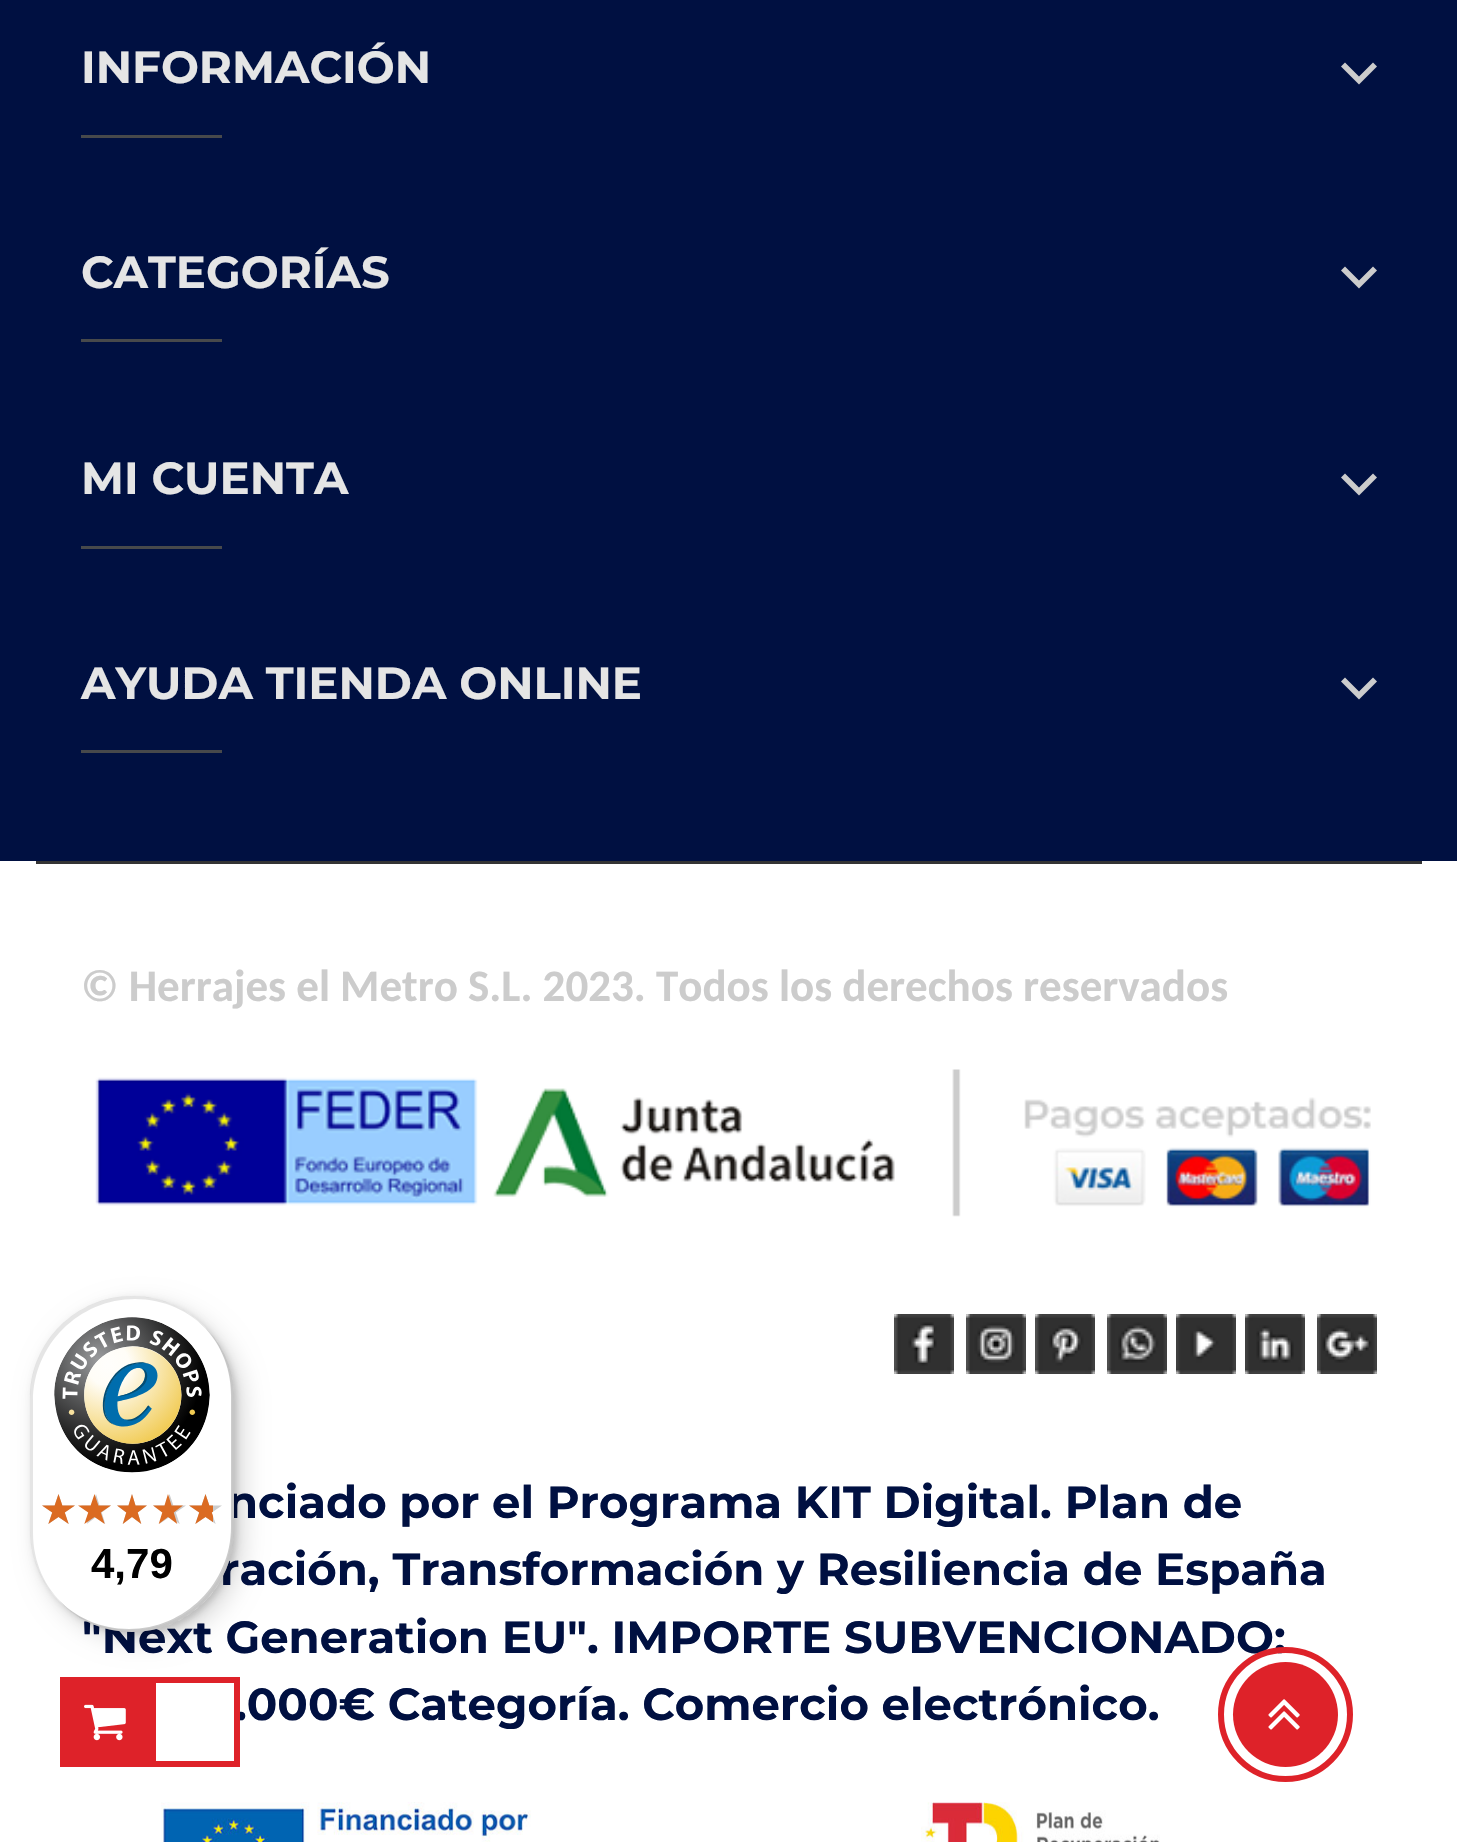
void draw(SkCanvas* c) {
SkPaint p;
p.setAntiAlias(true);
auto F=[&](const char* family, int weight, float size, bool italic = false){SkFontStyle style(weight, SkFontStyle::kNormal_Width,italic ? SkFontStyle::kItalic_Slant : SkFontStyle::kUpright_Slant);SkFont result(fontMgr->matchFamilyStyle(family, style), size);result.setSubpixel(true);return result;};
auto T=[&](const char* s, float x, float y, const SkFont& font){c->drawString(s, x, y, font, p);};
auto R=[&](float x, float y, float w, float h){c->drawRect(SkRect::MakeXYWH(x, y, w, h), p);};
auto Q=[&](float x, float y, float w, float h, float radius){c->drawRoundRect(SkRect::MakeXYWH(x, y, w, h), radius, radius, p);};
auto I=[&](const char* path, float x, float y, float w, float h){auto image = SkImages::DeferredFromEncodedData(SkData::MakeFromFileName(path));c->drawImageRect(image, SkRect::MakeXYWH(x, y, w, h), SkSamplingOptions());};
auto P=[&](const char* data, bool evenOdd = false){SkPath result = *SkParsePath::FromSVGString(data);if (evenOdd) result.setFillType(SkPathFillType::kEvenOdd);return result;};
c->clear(0xffffffff);
p.setColor(0xff001041);
R(0,0,1457,861);
auto f1 = F("Montserrat",700,45);
p.setColor(0xffe5e5e5);
T("INFORMACIÓN",81,83,f1);
p.setColor(0xff47494b);
R(81,135,141,3);
p.setColor(0xffcccccc);
c->drawPath(P("M1345 62.5l14 14l14-14l4 4l-18 18l-18-18z"),p);
p.setColor(0xffe5e5e5);
T("CATEGORÍAS",81,288,f1);
p.setColor(0xff47494b);
R(81,339,141,3);
p.setColor(0xffcccccc);
c->drawPath(P("M1345 266.5l14 14l14-14l4 4l-18 18l-18-18z"),p);
p.setColor(0xffe5e5e5);
T("MI CUENTA",81,494,f1);
p.setColor(0xff47494b);
R(81,546,141,3);
p.setColor(0xffcccccc);
c->drawPath(P("M1345 473.5l14 14l14-14l4 4l-18 18l-18-18z"),p);
p.setColor(0xffe5e5e5);
T("AYUDA TIENDA ONLINE",81,699,f1);
p.setColor(0xff47494b);
R(81,750,141,3);
p.setColor(0xffcccccc);
c->drawPath(P("M1345 677.5l14 14l14-14l4 4l-18 18l-18-18z"),p);
p.setColor(0xff343434);
R(36,861,1386,3);
auto f2 = F("Carlito",700,45);
p.setColor(0xffcccccc);
T("© Herrajes el Metro S.L. 2023. Todos los derechos reservados",81,1001,f2);
I("1.png",95,1069,1276,148);
I("2.png",894,1314,60,60);
I("3.png",966,1314,60,60);
I("4.png",1035,1314,60,60);
I("5.png",1107,1314,60,60);
I("6.png",1176,1314,60,60);
I("7.png",1245,1314,60,60);
I("8.png",1317,1314,60,60);
p.setColor(0xff001041);
T("nciado por el Programa KIT Digital. Plan de",227,1518,f1);
T("ración, Transformación y Resiliencia de España",220,1585,f1);
T("\"Next Generation EU\". IMPORTE SUBVENCIONADO:",82,1653,f1);
T(".000€ Categoría. Comercio electrónico.",235,1720,f1);
I("9.png",161,1802,370,40);
I("10.png",921,1802,239,40);
p.setStroke(true);
p.setStrokeWidth(6);
p.setColor(0xffde2229);
c->drawCircle(1285.5,1714.5,64.5,p);
p.setStroke(false);
c->drawCircle(1285.5,1714.5,52.5,p);
I("11.png",1268,1699,32,31);
R(60,1677,90,90);
p.setStroke(true);
c->drawRect(SkRect::MakeXYWH(153,1680,84,84),p);
p.setStroke(false);
p.setColor(0x26000000);
p.setMaskFilter(SkMaskFilter::MakeBlur(kNormal_SkBlurStyle, 12));
c->drawRoundRect(SkRect::MakeXYWH(39,1305,204,336),102,102,p);
p.setMaskFilter(nullptr);
p.setMaskFilter(SkMaskFilter::MakeBlur(kNormal_SkBlurStyle, 3));
c->drawRoundRect(SkRect::MakeXYWH(33,1299,204,336),102,102,p);
p.setMaskFilter(nullptr);
p.setColor(0xffffffff);
Q(30,1296,204,336,102);
p.setColor(0x1a000000);
c->drawPath(P("M135 1299c29 0 55 12 73 32c-18-22-46-35-76-35c-56 0-102 46-102 102v132c0 30 13 58 35 76c-20-18-32-44-32-73v-132c0-56 46-102 102-102z"),p);
p.setColor(0x33000000);
c->drawPath(P("M56 1597c18 22 46 35 76 35c56 0 102-46 102-102v-132c0-30-13-58-35-76c20 18 32 44 32 73v132c0 56-46 102-102 102c-29 0-55-12-73-32z"),p);
p.setColor(0x33323232);
c->drawPath(P("M61 1603c18 18 43 29 71 29c56 0 102-46 102-102v-132c0-28-11-53-29-71c17 18 27 43 27 69v132c0 57-45 102-102 102c-26 0-51-10-69-27z"),p);
p.setColor(0x4dffffff);
c->drawPath(P("M61 1603c18 18 43 29 71 29c56 0 102-46 102-102v-132c0-28-11-53-29-71c17 18 27 43 27 69v132c0 57-45 102-102 102c-26 0-51-10-69-27z"),p);
I("12.png",54,1317,156,156);
I("13.png",42,1494,33,30);
I("14.png",81,1494,30,30);
I("14.png",117,1494,30,30);
I("13.png",153,1494,33,30);
I("13.png",189,1494,33,30);
I("15.png",42,1494,33,30);
I("16.png",78,1494,33,30);
I("17.png",117,1494,30,30);
I("18.png",153,1494,30,30);
I("19.png",189,1494,24,30);
auto f3 = F("Liberation Sans",700,42);
p.setColor(0xff000000);
T("4,79",91,1578,f3);
I("20.png",84,1704,42,37);
}
